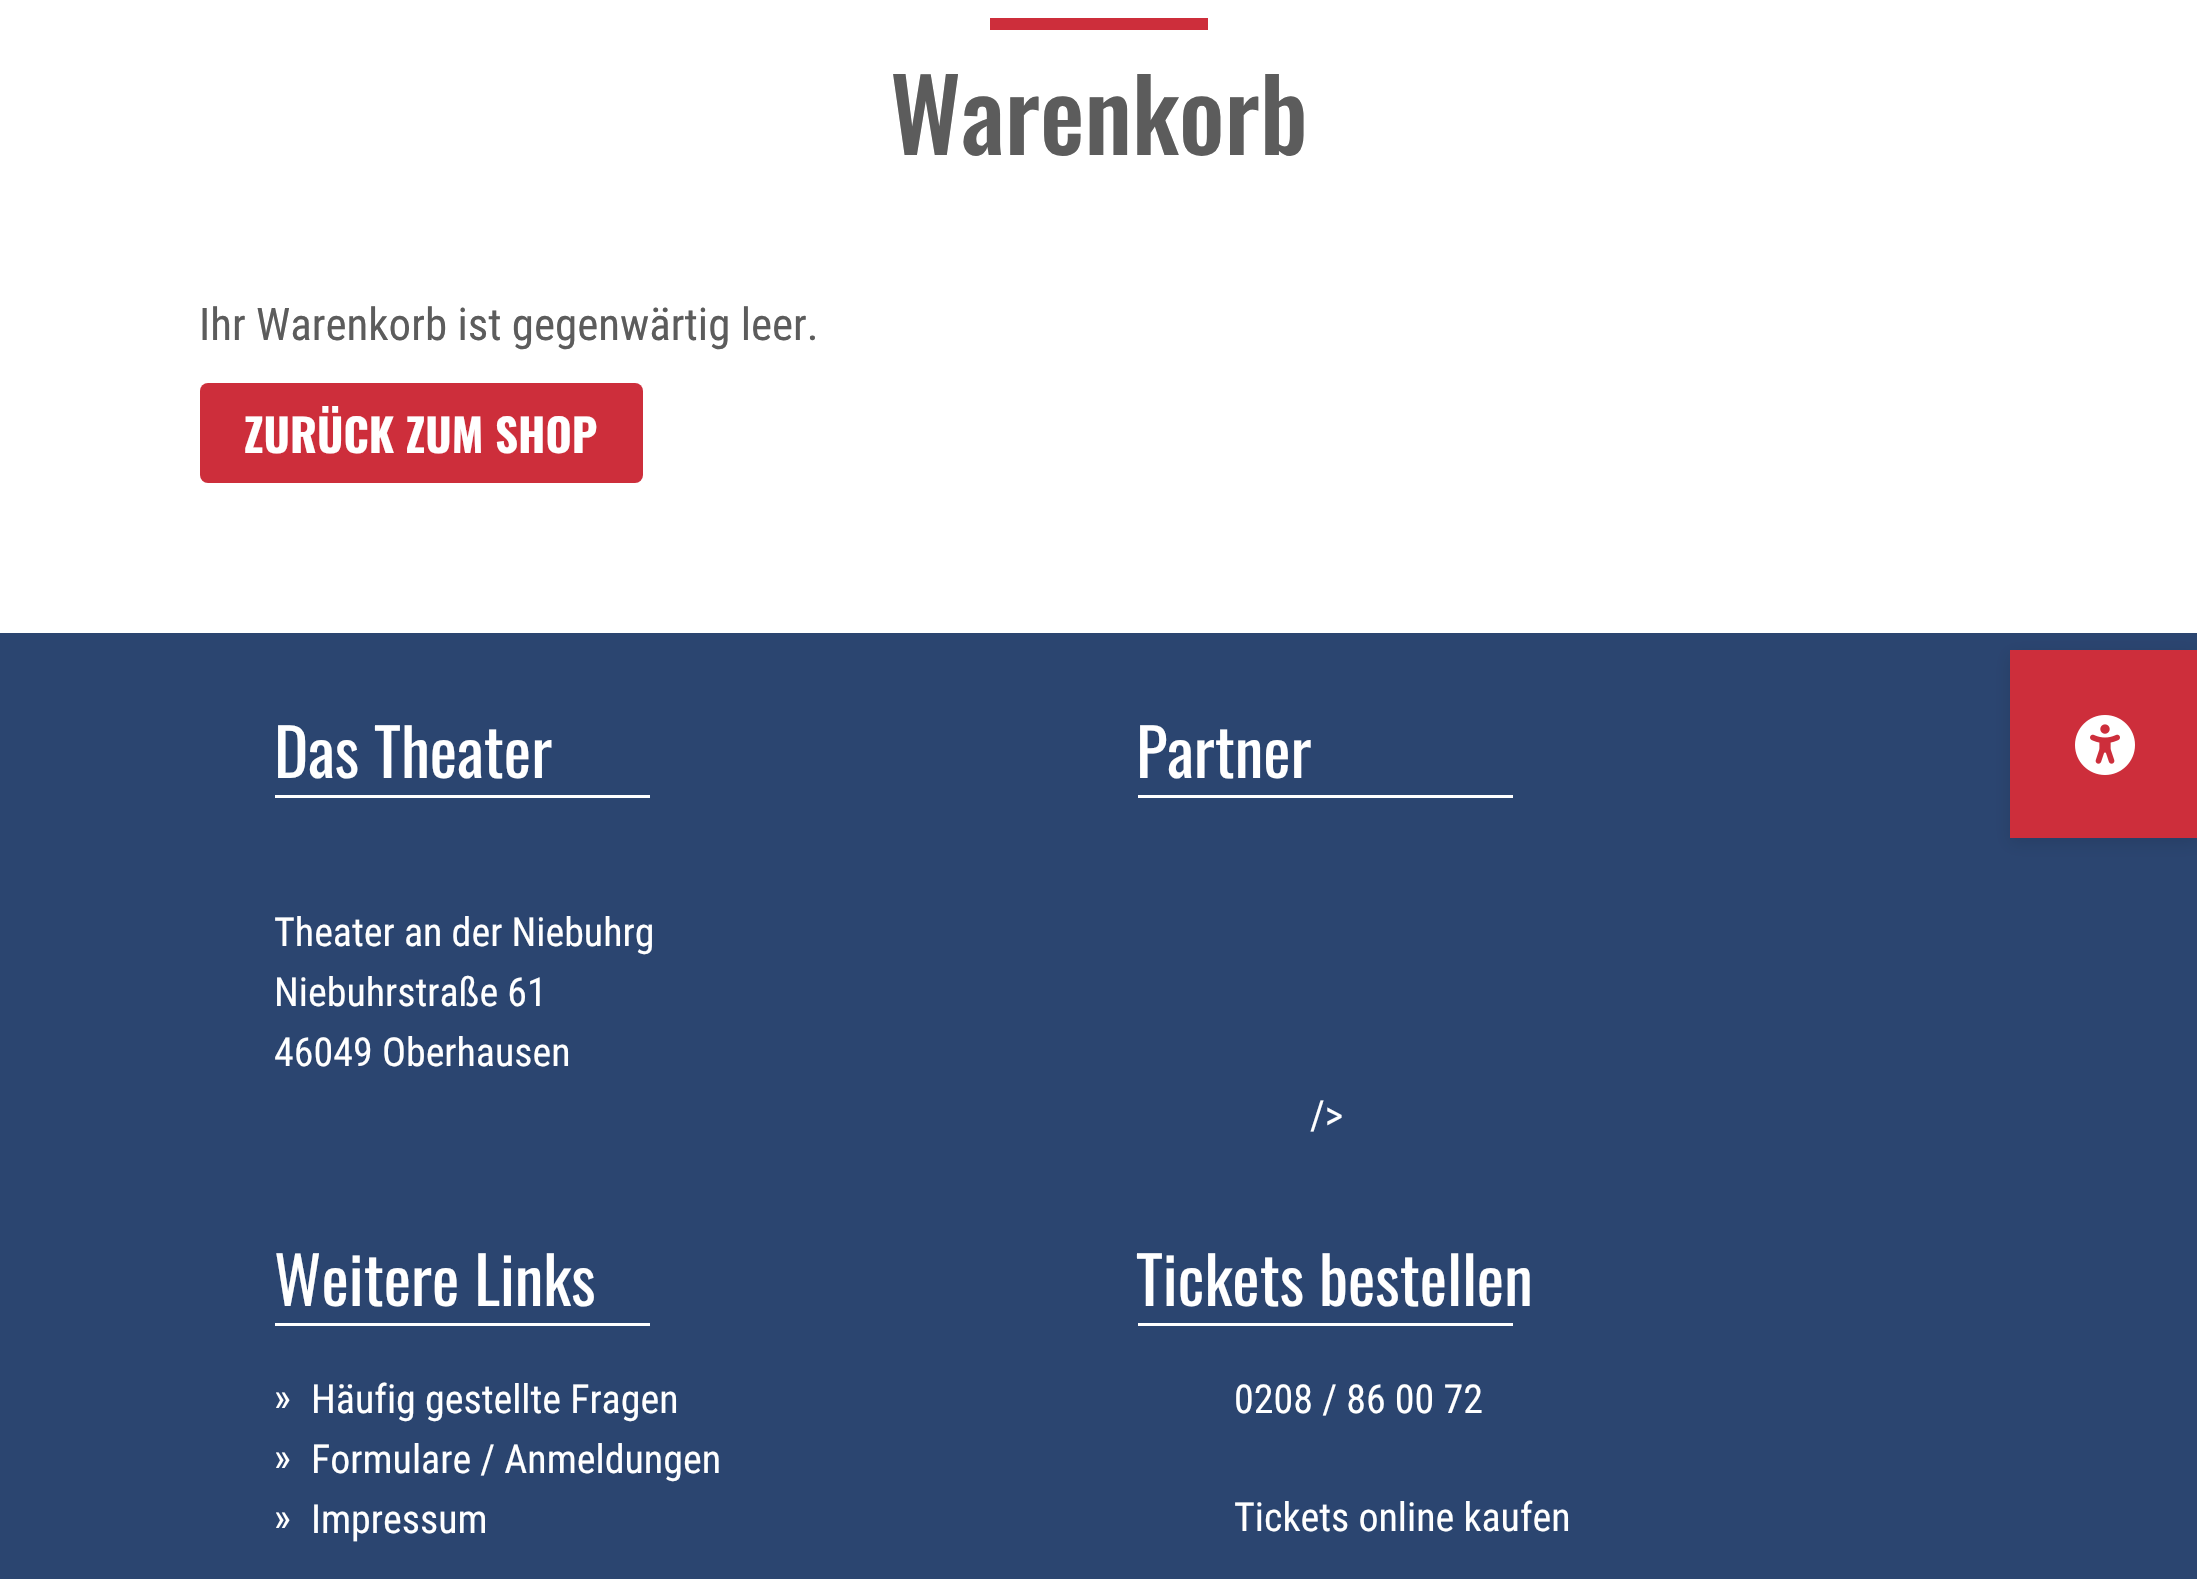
void draw(SkCanvas* c) {
SkPaint p;
p.setAntiAlias(true);
auto F=[&](const char* family, int weight, float size, bool italic = false){SkFontStyle style(weight, SkFontStyle::kNormal_Width,italic ? SkFontStyle::kItalic_Slant : SkFontStyle::kUpright_Slant);SkFont result(fontMgr->matchFamilyStyle(family, style), size);result.setSubpixel(true);return result;};
auto T=[&](const char* s, float x, float y, const SkFont& font){c->drawString(s, x, y, font, p);};
auto R=[&](float x, float y, float w, float h){c->drawRect(SkRect::MakeXYWH(x, y, w, h), p);};
auto Q=[&](float x, float y, float w, float h, float radius){c->drawRoundRect(SkRect::MakeXYWH(x, y, w, h), radius, radius, p);};
auto I=[&](const char* path, float x, float y, float w, float h){auto image = SkImages::DeferredFromEncodedData(SkData::MakeFromFileName(path));c->drawImageRect(image, SkRect::MakeXYWH(x, y, w, h), SkSamplingOptions());};
c->clear(0xffffffff);
p.setColor(0xffcd2e3b);
R(990,18,218,12);
auto f1 = F("Oswald",500,100);
p.setColor(0xff5c5c5c);
T("Warenkorb",890,155,f1);
auto f2 = F("Roboto Condensed",400,45);
T("Ihr Warenkorb ist gegenwärtig leer.",199,340,f2);
p.setColor(0xffcd2e3b);
Q(200,383,443,100,8);
auto f3 = F("Oswald",700,45);
p.setColor(0xffffffff);
T("ZURÜCK ZUM SHOP",244,453,f3);
p.setColor(0xff2b4570);
R(0,633,2197,946);
auto f4 = F("Oswald",400,65);
p.setColor(0xffffffff);
T("Das Theater",274,778,f4);
R(275,795,375,3);
auto f5 = F("Roboto Condensed",400,40);
T("Theater an der Niebuhrg",274,946,f5);
T("Niebuhrstraße 61",274,1006,f5);
T("46049 Oberhausen",274,1066,f5);
T("Partner",1136,778,f4);
R(1138,795,375,3);
T("/>",1310,1129,f5);
T("Weitere Links",274,1306,f4);
R(275,1323,375,3);
T("»",274,1411,f5);
T("Häufig gestellte Fragen",311,1413,f5);
T("»",274,1471,f5);
T("Formulare / Anmeldungen",311,1473,f5);
T("»",274,1531,f5);
T("Impressum",311,1533,f5);
T("Tickets bestellen",1136,1306,f4);
R(1138,1323,375,3);
T("0208 / 86 00 72",1234,1413,f5);
T("Tickets online kaufen",1234,1531,f5);
p.setColor(0x1a000000);
p.setMaskFilter(SkMaskFilter::MakeBlur(kNormal_SkBlurStyle, 7.5));
c->drawRect(SkRect::MakeXYWH(2010,655,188,188),p);
p.setMaskFilter(nullptr);
p.setColor(0xffcd2e3b);
R(2010,650,187,188);
I("1.png",2075,715,60,60);
}
